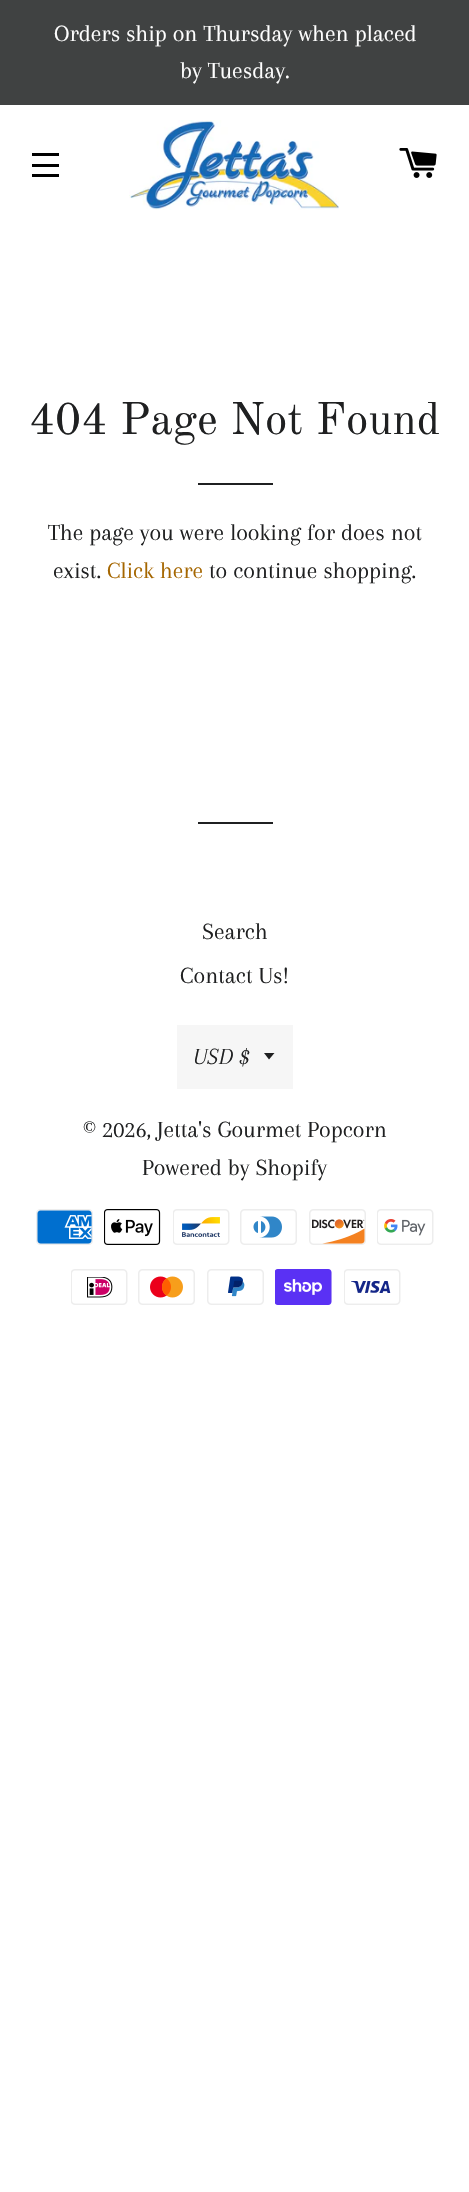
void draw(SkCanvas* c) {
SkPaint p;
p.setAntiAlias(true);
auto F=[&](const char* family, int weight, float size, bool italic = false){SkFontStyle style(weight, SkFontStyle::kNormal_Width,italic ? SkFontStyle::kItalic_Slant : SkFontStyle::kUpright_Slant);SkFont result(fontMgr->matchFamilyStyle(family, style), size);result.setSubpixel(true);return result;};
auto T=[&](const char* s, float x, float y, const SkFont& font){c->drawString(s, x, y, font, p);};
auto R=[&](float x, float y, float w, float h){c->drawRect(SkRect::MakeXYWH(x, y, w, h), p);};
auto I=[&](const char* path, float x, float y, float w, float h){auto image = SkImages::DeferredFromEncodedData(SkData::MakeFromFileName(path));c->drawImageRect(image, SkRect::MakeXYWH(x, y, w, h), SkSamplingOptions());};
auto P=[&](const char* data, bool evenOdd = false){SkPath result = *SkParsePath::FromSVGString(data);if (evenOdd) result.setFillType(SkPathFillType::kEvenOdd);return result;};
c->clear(0xffffffff);
p.setColor(0xff404242);
R(0,0,469,105);
auto f1 = F("Arapey",400,24);
p.setColor(0xffffffff);
T("Orders ship on Thursday when placed",54,41,f1);
T("by Tuesday.",180,78,f1);
p.setColor(0xff000000);
R(32,153,27,3);
R(32,164,27,3);
R(32,174,27,3);
I("1.png",129,120,210,90);
I("2.png",399,148,38,30);
auto f2 = F("Old Standard TT",400,45);
p.setColor(0xff1f2021);
T("404 Page Not Found",29,434,f2);
R(198,483,75,2);
T("The page you were looking for does not",48,540,f1);
T("exist.",53,578,f1);
p.setColor(0xffa56600);
T("Click here",107,578,f1);
p.setColor(0xff1f2021);
T("to continue shopping.",209,578,f1);
R(198,822,75,2);
T("Search",202,939,f1);
T("Contact Us!",180,983,f1);
p.setColor(0xfff6f6f6);
R(177,1025,116,64);
p.setColor(0xff1f2021);
c->drawPath(P("M264 1053l5 6.5l5.5-6.5z"),p);
auto f3 = F("Arapey",400,24,true);
T("USD $",193,1064,f3);
T("© 2026, Jetta's Gourmet Popcorn",83,1137,f1);
T("Powered by Shopify",142,1175,f1);
I("3.png",36,1209,57,36);
I("4.png",104,1209,57,36);
I("5.png",173,1209,57,36);
I("6.png",240,1209,57,36);
I("7.png",309,1209,57,36);
I("8.png",377,1209,57,36);
I("9.png",71,1269,57,36);
I("10.png",138,1269,57,36);
I("11.png",207,1269,57,36);
I("12.png",275,1269,57,36);
I("13.png",344,1269,57,36);
}
